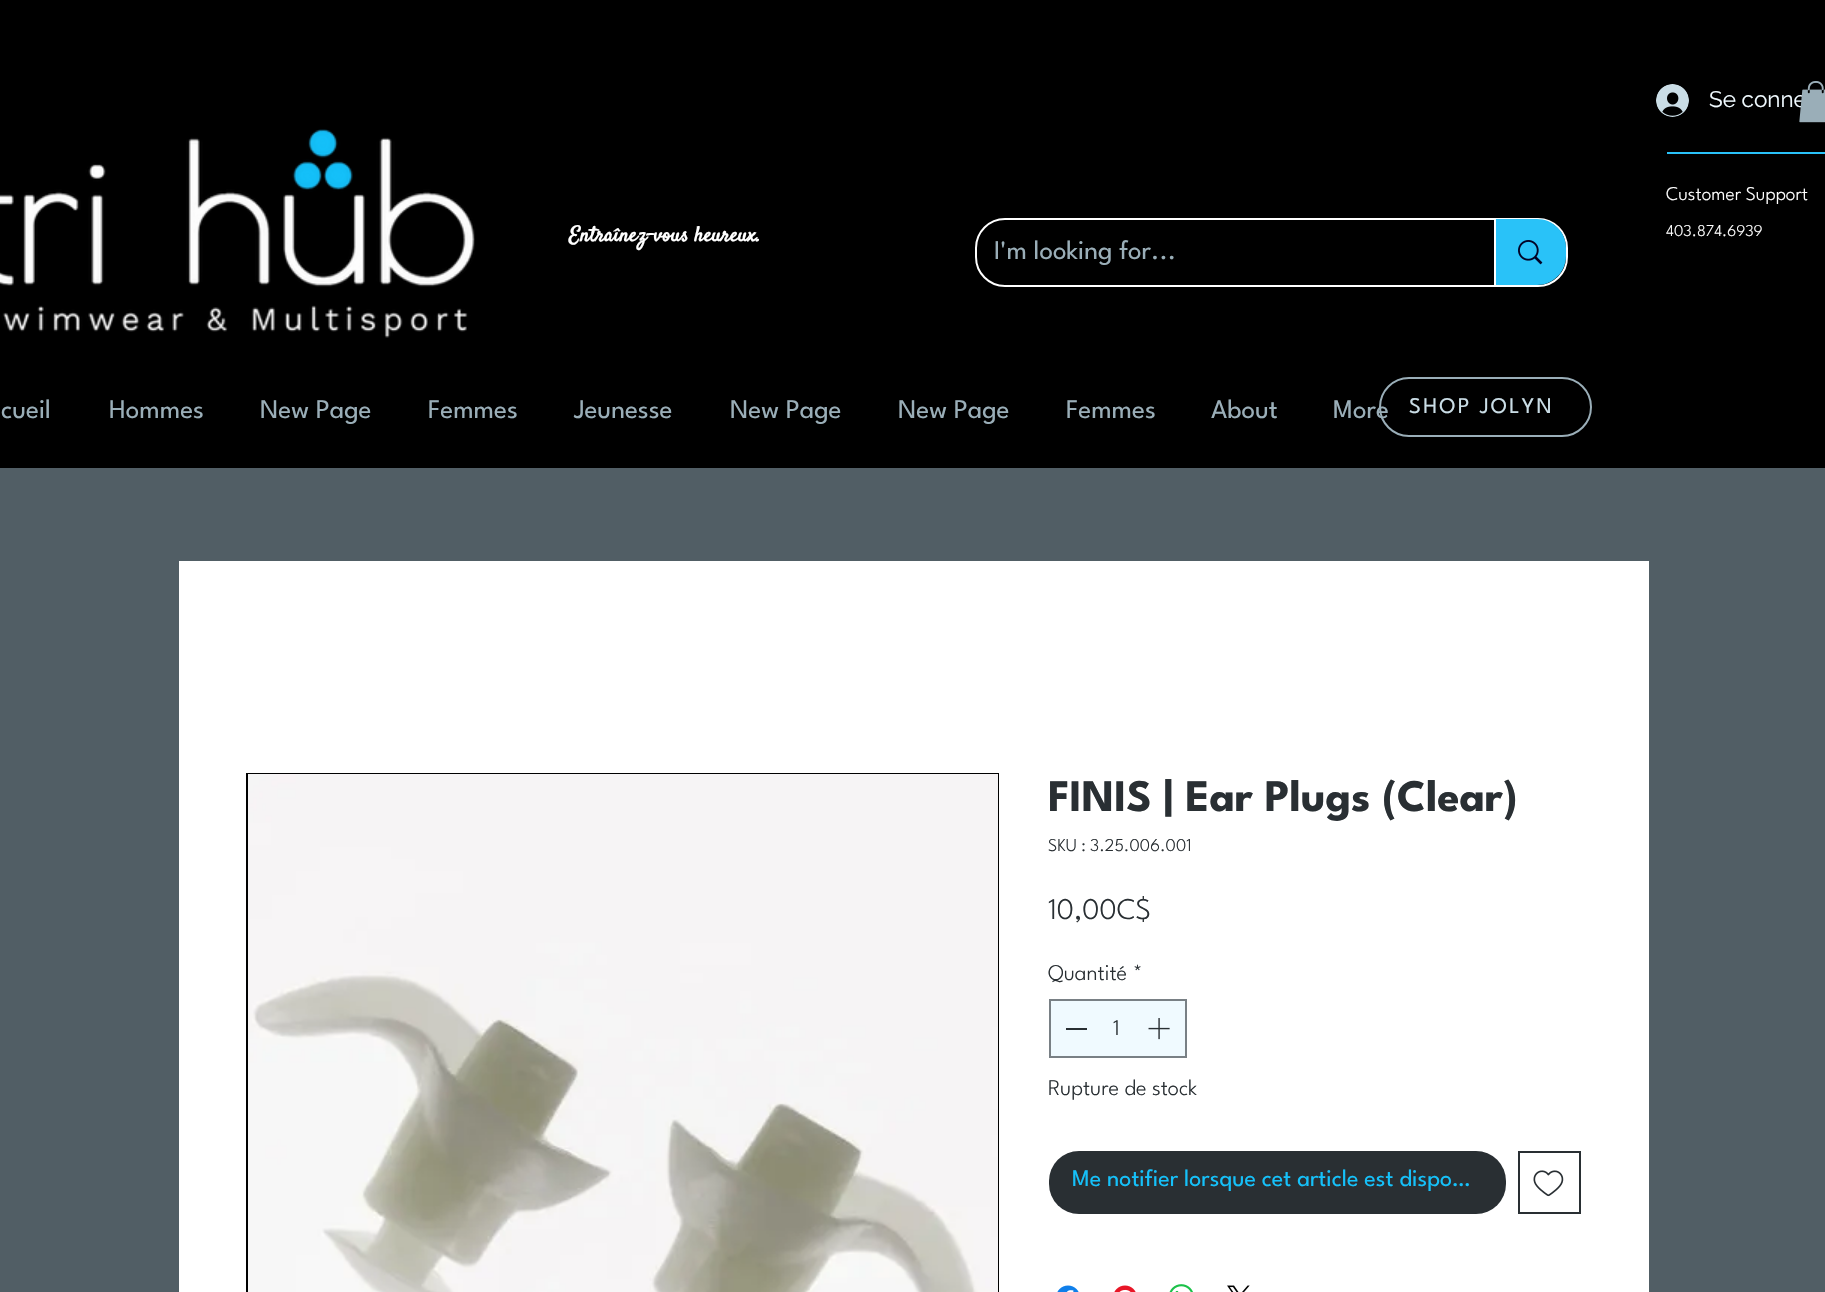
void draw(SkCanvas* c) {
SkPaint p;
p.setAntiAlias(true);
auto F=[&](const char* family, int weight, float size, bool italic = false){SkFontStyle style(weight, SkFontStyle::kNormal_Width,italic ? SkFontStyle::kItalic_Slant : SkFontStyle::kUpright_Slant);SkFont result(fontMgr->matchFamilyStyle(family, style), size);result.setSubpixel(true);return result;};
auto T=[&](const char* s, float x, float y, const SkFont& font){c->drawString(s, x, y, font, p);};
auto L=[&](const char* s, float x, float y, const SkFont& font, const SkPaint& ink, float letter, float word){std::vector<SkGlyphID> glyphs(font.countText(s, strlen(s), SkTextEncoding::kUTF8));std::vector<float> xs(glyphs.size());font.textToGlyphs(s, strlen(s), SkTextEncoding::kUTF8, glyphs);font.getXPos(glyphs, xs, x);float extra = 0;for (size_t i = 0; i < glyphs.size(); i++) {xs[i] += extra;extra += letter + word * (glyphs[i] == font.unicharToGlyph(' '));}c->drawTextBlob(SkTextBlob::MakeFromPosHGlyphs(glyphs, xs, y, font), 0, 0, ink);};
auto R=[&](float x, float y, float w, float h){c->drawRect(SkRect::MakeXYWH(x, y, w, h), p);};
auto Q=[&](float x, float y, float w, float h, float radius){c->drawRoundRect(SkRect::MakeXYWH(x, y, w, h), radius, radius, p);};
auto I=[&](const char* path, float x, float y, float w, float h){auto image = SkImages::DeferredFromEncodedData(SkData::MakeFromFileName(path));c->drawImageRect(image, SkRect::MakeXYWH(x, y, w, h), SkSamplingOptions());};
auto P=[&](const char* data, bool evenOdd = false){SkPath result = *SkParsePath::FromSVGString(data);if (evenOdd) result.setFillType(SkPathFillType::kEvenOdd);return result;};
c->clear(0xff515e65);
p.setColor(0xff000000);
R(0,0,1825,468);
I("1.png",1656,84,33,33);
auto f1 = F("Raleway",400,22.5);
p.setColor(0xfff0faff);
T("Se conne",1709,107,f1);
I("2.png",1799,81,26,42);
I("3.png",0,129,475,209);
p.setColor(0xff29c2f8);
R(1667,152,158,2);
auto f2 = F("League Spartan",100,19.5);
p.setColor(0xffffffff);
T("Customer Support",1666,200,f2);
auto f3 = F("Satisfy",700,21);
T("Entraînez-vous heureux.",569,241,f3);
p.setStroke(true);
p.setStrokeWidth(2);
c->drawRoundRect(SkRect::MakeXYWH(976,219,591,67),29,29,p);
auto f4 = F("League Spartan",400,27);
p.setStroke(false);
p.setColor(0xff9aaeb8);
T("I'm looking for...",994,259,f4);
p.setColor(0xff29c2f8);
c->drawPath(P("M1494 219h43c16 0 29 13 29 29v8c0 16-13 29-29 29h-43z"),p);
p.setColor(0xffffffff);
R(1494,219,2,66);
I("4.png",1518,240,25,25);
auto f5 = F("League Spartan",100,16.5);
T("403.874.6939",1666,236,f5);
p.setColor(0xff9aaeb8);
T("cueil",1,418,f4);
T("Hommes",109,418,f4);
T("New Page",260,418,f4);
T("Femmes",428,418,f4);
T("Jeunesse",574,418,f4);
T("New Page",730,418,f4);
T("New Page",898,418,f4);
T("Femmes",1066,418,f4);
T("About",1211,418,f4);
p.setStroke(true);
c->drawRoundRect(SkRect::MakeXYWH(1380,378,211,58),29,29,p);
p.setStroke(false);
T("More",1333,418,f4);
auto f6 = F("League Spartan",400,22.5);
p.setColor(0xffcadde6);
L("SHOP JOLYN",1409,413,f6,p,2.25,0);
p.setColor(0xffffffff);
R(179,561,1470,731);
p.setStroke(true);
p.setColor(0xff000000);
c->drawRect(SkRect::MakeXYWH(247,774,751,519),p);
I("5.png",248,774,750,518);
auto f7 = F("League Spartan",700,45);
p.setStroke(false);
p.setColor(0xff292f33);
T("FINIS | Ear Plugs (Clear)",1048,811,f7);
auto f8 = F("League Spartan",100,18);
T("SKU : 3.25.006.001",1048,851,f8);
auto f9 = F("League Spartan",100,30);
T("10,00C$",1048,919,f9);
auto f10 = F("League Spartan",100,22.5);
T("Quantité",1048,980,f10);
T("*",1133,980,f10);
p.setColor(0xfff0faff);
c->drawRect(SkRect::MakeXYWH(1050,1000,136,57),p);
p.setStroke(true);
p.setColor(0xff798085);
c->drawRect(SkRect::MakeXYWH(1050,1000,136,57),p);
p.setStroke(false);
p.setColor(0xff292f33);
R(1066,1028,21,2);
T("1",1113,1035,f10);
I("6.png",1148,1018,22,22);
T("Rupture de stock",1048,1095,f10);
Q(1049,1151,457,63,30);
auto f11 = F("League Spartan",400,24);
p.setColor(0xff15c1fa);
T("Me notifier lorsque cet article est dispo…",1072,1186,f11);
p.setStroke(true);
p.setColor(0xff292f33);
c->drawRect(SkRect::MakeXYWH(1519,1152,61,61),p);
I("7.png",1533,1170,31,27);
I("8.png",1057,1285,22,7);
I("9.png",1114,1285,22,7);
I("10.png",1169,1284,24,8);
I("11.png",1227,1285,23,7);
}
